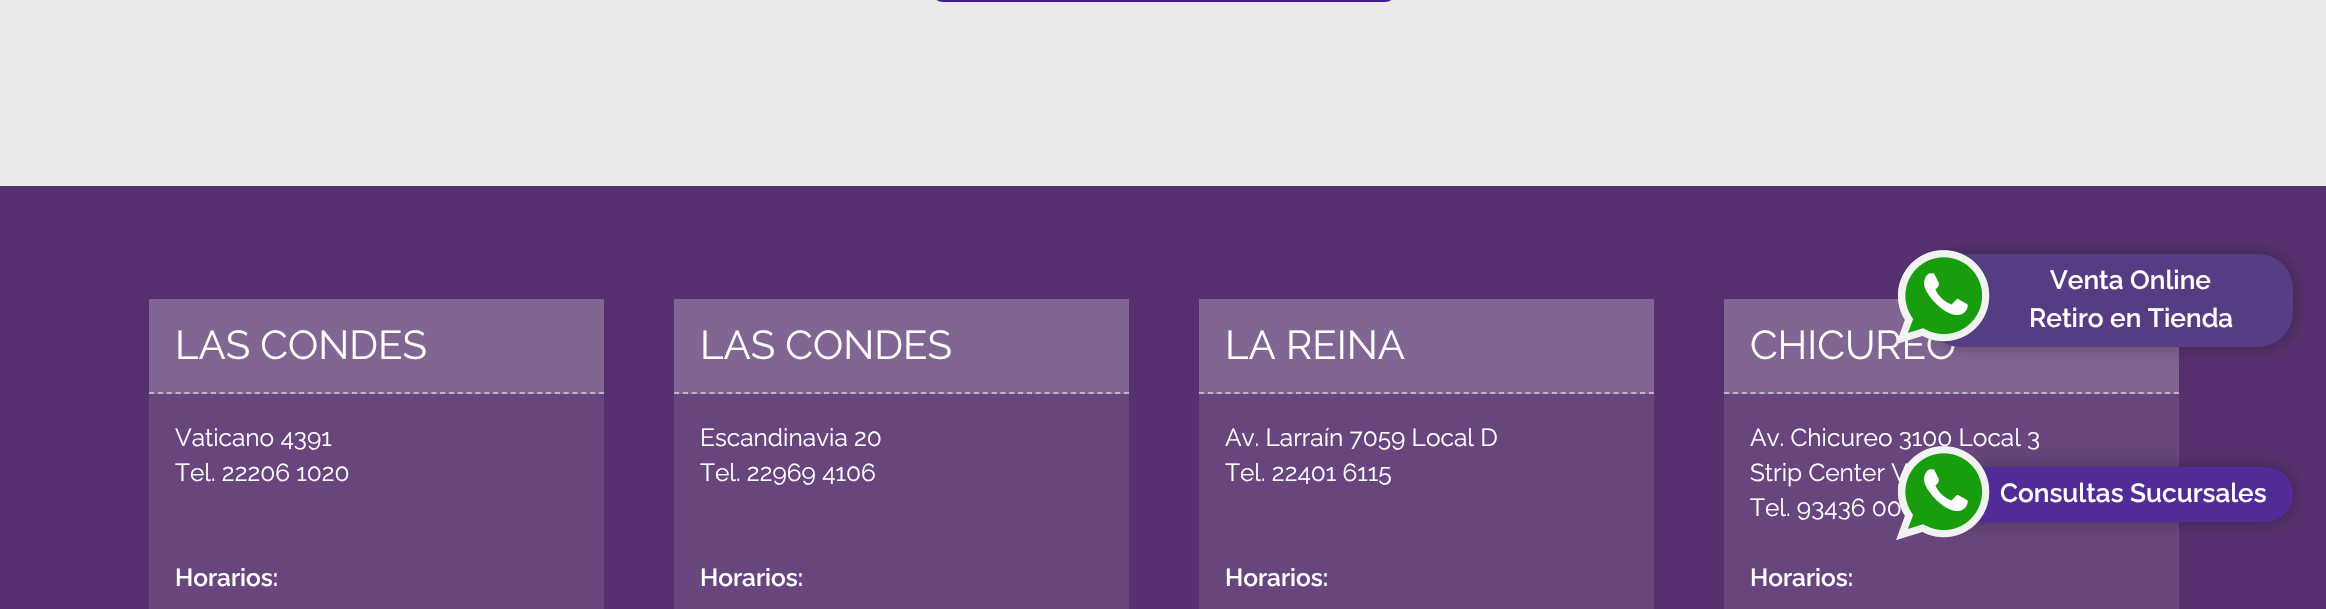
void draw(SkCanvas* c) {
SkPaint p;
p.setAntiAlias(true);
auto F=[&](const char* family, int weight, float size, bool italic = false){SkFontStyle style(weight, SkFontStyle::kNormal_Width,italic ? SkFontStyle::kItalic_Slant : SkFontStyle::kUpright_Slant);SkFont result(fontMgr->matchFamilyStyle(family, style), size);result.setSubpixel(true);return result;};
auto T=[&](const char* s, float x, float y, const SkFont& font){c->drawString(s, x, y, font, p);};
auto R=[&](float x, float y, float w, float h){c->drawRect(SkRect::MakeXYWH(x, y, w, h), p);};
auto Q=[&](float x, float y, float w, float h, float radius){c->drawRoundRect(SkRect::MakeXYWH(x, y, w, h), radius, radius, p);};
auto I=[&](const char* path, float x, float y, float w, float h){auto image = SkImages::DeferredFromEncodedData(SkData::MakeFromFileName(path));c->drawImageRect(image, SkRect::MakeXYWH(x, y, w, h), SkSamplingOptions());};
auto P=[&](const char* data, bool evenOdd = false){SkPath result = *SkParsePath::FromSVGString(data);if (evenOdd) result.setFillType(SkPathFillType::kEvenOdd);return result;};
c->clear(0xffeaeaea);
p.setStroke(true);
p.setStrokeWidth(4);
p.setColor(0xff3f1e91);
c->drawRoundRect(SkRect::MakeXYWH(933,-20,462,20),16,16,p);
p.setStroke(false);
p.setColor(0xff57316f);
R(0,186,2326,423);
p.setColor(0xff816593);
R(149,299,455,95);
p.setStroke(true);
p.setStrokeWidth(1.8);
p.setColor(0xffc0b2c9);
p.setPathEffect(SkDashPathEffect::Make({{5.25f,3.57f}}, 0));
c->drawPath(P("M149 393h455"),p);
p.setPathEffect(nullptr);
auto f1 = F("Raleway",400,40.25);
p.setStroke(false);
p.setColor(0xffffffff);
T("LAS CONDES",175,359,f1);
p.setColor(0xff68467d);
R(149,394,455,215);
auto f2 = F("Raleway",400,24.5);
p.setColor(0xffffffff);
T("Vaticano 4391",175,446,f2);
T("Tel. 22206 1020",175,481,f2);
auto f3 = F("Raleway",600,24.5);
T("Horarios:",175,586,f3);
p.setColor(0xff816593);
R(674,299,455,95);
p.setStroke(true);
p.setColor(0xffc0b2c9);
p.setPathEffect(SkDashPathEffect::Make({{5.25f,3.57f}}, 0));
c->drawPath(P("M674 393h455"),p);
p.setPathEffect(nullptr);
p.setStroke(false);
p.setColor(0xffffffff);
T("LAS CONDES",700,359,f1);
p.setColor(0xff68467d);
R(674,394,455,215);
p.setColor(0xffffffff);
T("Escandinavia 20",700,446,f2);
T("Tel. 22969 4106",700,481,f2);
T("Horarios:",700,586,f3);
p.setColor(0xff816593);
R(1199,299,455,95);
p.setStroke(true);
p.setColor(0xffc0b2c9);
p.setPathEffect(SkDashPathEffect::Make({{5.25f,3.57f}}, 0));
c->drawPath(P("M1199 393h455"),p);
p.setPathEffect(nullptr);
p.setStroke(false);
p.setColor(0xffffffff);
T("LA REINA",1225,359,f1);
p.setColor(0xff68467d);
R(1199,394,455,215);
p.setColor(0xffffffff);
T("Av. Larraín 7059 Local D",1225,446,f2);
T("Tel. 22401 6115",1225,481,f2);
T("Horarios:",1225,586,f3);
p.setColor(0xff816593);
R(1724,299,455,95);
p.setStroke(true);
p.setColor(0xffc0b2c9);
p.setPathEffect(SkDashPathEffect::Make({{5.25f,3.57f}}, 0));
c->drawPath(P("M1724 393h455"),p);
p.setPathEffect(nullptr);
p.setStroke(false);
p.setColor(0xffffffff);
T("CHICUREO",1750,359,f1);
p.setColor(0xff68467d);
R(1724,394,455,215);
p.setColor(0xffffffff);
T("Av. Chicureo 3100 Local 3",1750,446,f2);
T("Strip Center V",1750,481,f2);
T("Tel. 93436 00",1750,516,f2);
T("Horarios:",1750,586,f3);
p.setColor(0x4d000000);
p.setMaskFilter(SkMaskFilter::MakeBlur(kNormal_SkBlurStyle, 9));
c->drawRoundRect(SkRect::MakeXYWH(1927,254,367,93),35,35,p);
p.setMaskFilter(nullptr);
p.setColor(0xff563d83);
Q(1925,254,368,93,35);
I("1.png",1896,250,94,94);
auto f4 = F("Raleway",600,26.25);
p.setColor(0xffffffff);
T("Venta Online",2050,289,f4);
T("Retiro en Tienda",2029,327,f4);
p.setColor(0x4d000000);
p.setMaskFilter(SkMaskFilter::MakeBlur(kNormal_SkBlurStyle, 9));
c->drawRoundRect(SkRect::MakeXYWH(1927,467,367,55),27.5,27.5,p);
p.setMaskFilter(nullptr);
p.setColor(0xff512b96);
Q(1925,467,368,55,27.5);
I("2.png",1896,446,94,94);
p.setColor(0xffffffff);
T("Consultas Sucursales",2000,502,f4);
}
